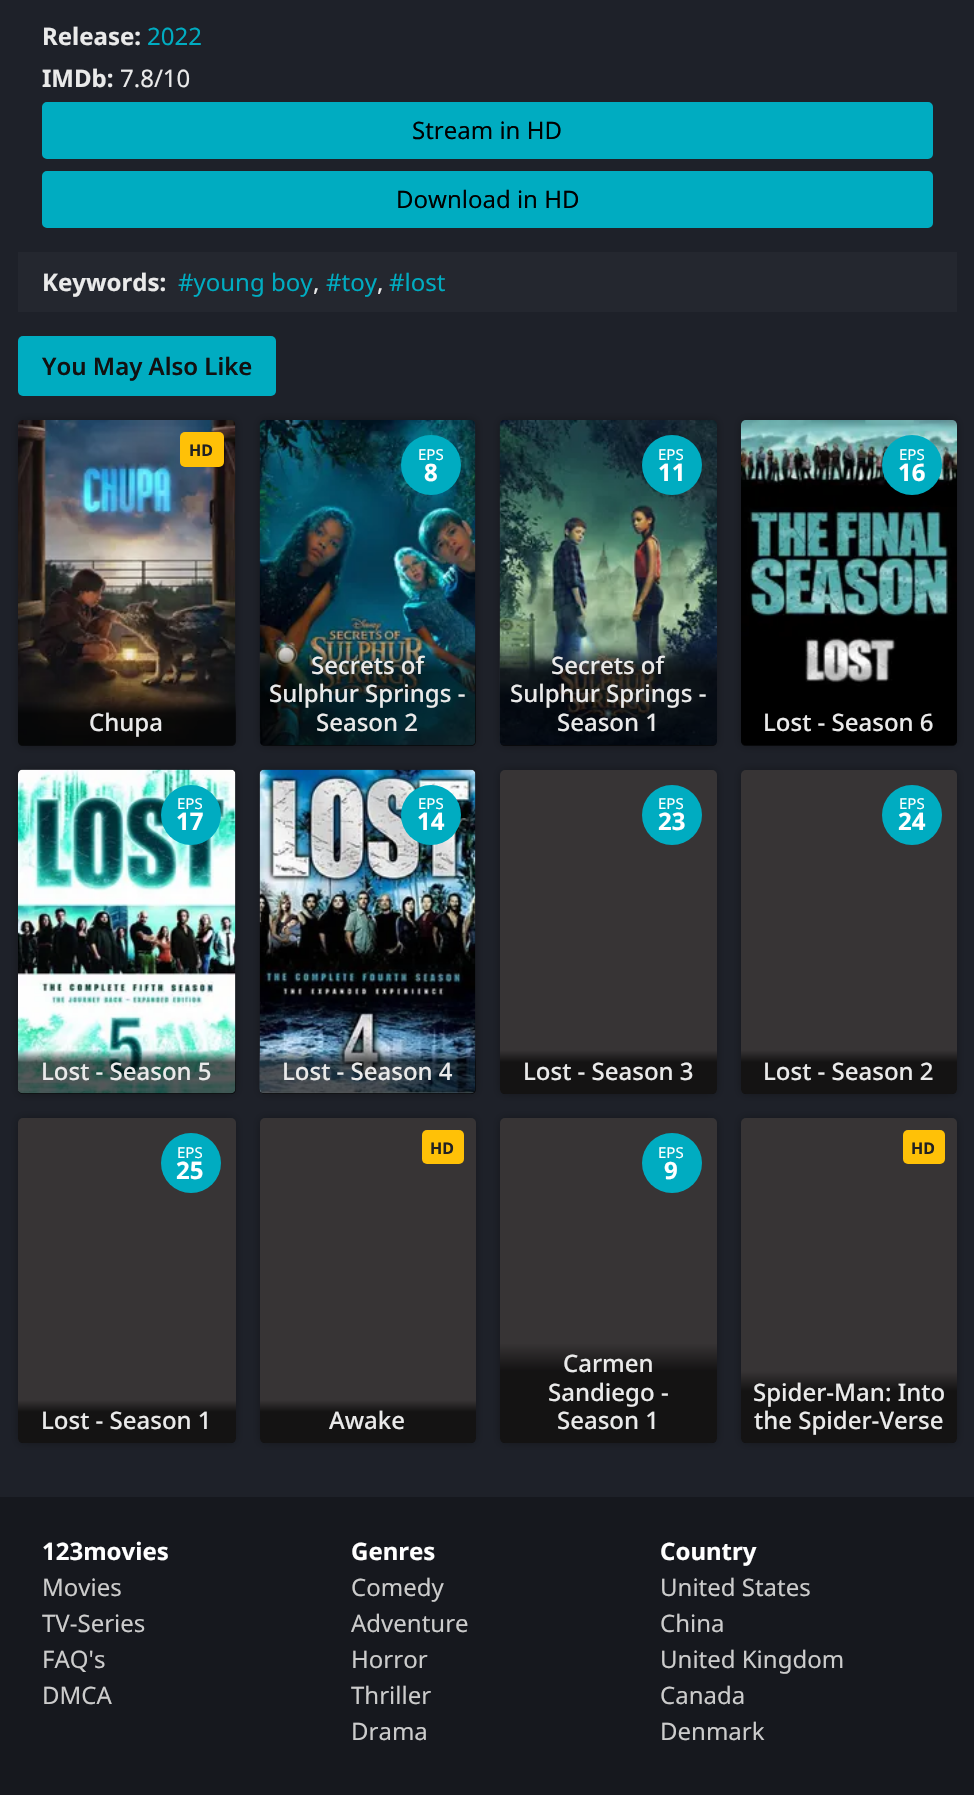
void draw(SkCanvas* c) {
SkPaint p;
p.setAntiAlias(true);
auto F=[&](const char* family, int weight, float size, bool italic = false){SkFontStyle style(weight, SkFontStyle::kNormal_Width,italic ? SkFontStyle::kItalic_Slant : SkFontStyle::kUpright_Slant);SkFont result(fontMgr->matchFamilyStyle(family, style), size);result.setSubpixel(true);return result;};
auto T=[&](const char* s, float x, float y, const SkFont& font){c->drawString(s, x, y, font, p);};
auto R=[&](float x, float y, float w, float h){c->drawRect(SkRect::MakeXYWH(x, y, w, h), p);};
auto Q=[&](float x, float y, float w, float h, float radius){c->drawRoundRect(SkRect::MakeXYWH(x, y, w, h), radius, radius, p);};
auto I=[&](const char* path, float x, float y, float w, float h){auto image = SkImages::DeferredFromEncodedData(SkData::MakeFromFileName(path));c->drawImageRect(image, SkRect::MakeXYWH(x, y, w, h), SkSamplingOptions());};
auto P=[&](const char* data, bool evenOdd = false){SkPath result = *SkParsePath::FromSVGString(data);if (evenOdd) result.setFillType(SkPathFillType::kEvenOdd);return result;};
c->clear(0xff1e2129);
auto f1 = F("Noto Sans",700,24);
p.setColor(0xffeaeaea);
T("Release:",42,45,f1);
auto f2 = F("Noto Sans",400,24);
p.setColor(0xff00acc1);
T("2022",147,45,f2);
p.setColor(0xffeaeaea);
T("IMDb:",42,87,f1);
T("7.8/10",120,87,f2);
p.setColor(0xff00acc1);
c->drawRoundRect(SkRect::MakeXYWH(43,103,889,55),4,4,p);
p.setStroke(true);
p.setStrokeWidth(2);
c->drawRoundRect(SkRect::MakeXYWH(43,103,889,55),4,4,p);
p.setStroke(false);
p.setColor(0xff000000);
T("Stream in HD",412,139,f2);
p.setColor(0xff00acc1);
c->drawRoundRect(SkRect::MakeXYWH(43,172,889,55),4,4,p);
p.setStroke(true);
c->drawRoundRect(SkRect::MakeXYWH(43,172,889,55),4,4,p);
p.setStroke(false);
p.setColor(0xff000000);
T("Download in HD",396,208,f2);
p.setColor(0x08eaeaea);
R(18,252,939,60);
p.setColor(0xffeaeaea);
T("Keywords:",42,291,f1);
p.setColor(0xff00acc1);
T("#young boy",178,291,f2);
p.setColor(0xffeaeaea);
T(",",313,291,f2);
p.setColor(0xff00acc1);
T("#toy",326,291,f2);
p.setColor(0xffeaeaea);
T(",",377,291,f2);
p.setColor(0xff00acc1);
T("#lost",389,291,f2);
Q(18,336,258,60,5);
auto f3 = F("Noto Sans",600,24);
p.setColor(0xff111111);
T("You May Also Like",42,375,f3);
p.setColor(0x4d000000);
p.setMaskFilter(SkMaskFilter::MakeBlur(kNormal_SkBlurStyle, 4));
c->drawRoundRect(SkRect::MakeXYWH(18,420,218,326),5,5,p);
p.setMaskFilter(nullptr);
I("1.png",18,420,218,325);
p.setColor(0xffffc107);
Q(180,432,44,35,5);
auto f4 = F("Noto Sans",700,16);
p.setColor(0xff222222);
T("HD",189,456,f4);
{
const SkColor colors[] = {0x00000000,0xa6000000,0xa6000000};
const float stops[] = {0,.28,1};
const SkPoint ends[] = {{127,701}, {127,746}};
p.setShader(SkGradientShader::MakeLinear(ends, colors, stops, 3, SkTileMode::kClamp));
p.setAlpha(255);
}
c->drawPath(P("M18 701h218v40c0 3-2 5-5 5h-208c-3 0-5-2-5-5z"),p);
auto f5 = F("Noto Sans",500,24);
p.setShader(nullptr);
p.setColor(0xffeaeaea);
T("Chupa",89,731,f5);
p.setColor(0x4d000000);
p.setMaskFilter(SkMaskFilter::MakeBlur(kNormal_SkBlurStyle, 4));
c->drawRoundRect(SkRect::MakeXYWH(260,420,216,326),5,5,p);
p.setMaskFilter(nullptr);
I("2.png",259,420,217,326);
p.setColor(0xff00acc1);
c->drawCircle(431,465,30,p);
auto f6 = F("Noto Sans",400,15);
p.setColor(0xffffffff);
T("EPS",418,460,f6);
T("8",424,481,f1);
{
const SkColor colors[] = {0x00000000,0xa6000000,0xa6000000};
const float stops[] = {0,.28,1};
const SkPoint ends[] = {{368,644}, {368,746}};
p.setShader(SkGradientShader::MakeLinear(ends, colors, stops, 3, SkTileMode::kClamp));
p.setAlpha(255);
}
c->drawPath(P("M260 644h216v97c0 3-2 5-5 5h-206c-3 0-5-2-5-5z"),p);
p.setShader(nullptr);
p.setColor(0xffeaeaea);
T("Secrets of",311,674,f5);
T("Sulphur Springs -",269,702,f5);
T("Season 2",316,731,f5);
p.setColor(0x4d000000);
p.setMaskFilter(SkMaskFilter::MakeBlur(kNormal_SkBlurStyle, 4));
c->drawRoundRect(SkRect::MakeXYWH(500,420,217,326),5,5,p);
p.setMaskFilter(nullptr);
I("3.png",499,420,218,325);
p.setColor(0xff00acc1);
c->drawCircle(672,465,30,p);
p.setColor(0xffffffff);
T("EPS",658,460,f6);
T("11",658,481,f1);
{
const SkColor colors[] = {0x00000000,0xa6000000,0xa6000000};
const float stops[] = {0,.28,1};
const SkPoint ends[] = {{608,644}, {608,746}};
p.setShader(SkGradientShader::MakeLinear(ends, colors, stops, 3, SkTileMode::kClamp));
p.setAlpha(255);
}
c->drawPath(P("M500 644h217v97c0 3-2 5-5 5h-207c-3 0-5-2-5-5z"),p);
p.setShader(nullptr);
p.setColor(0xffeaeaea);
T("Secrets of",551,674,f5);
T("Sulphur Springs -",510,702,f5);
T("Season 1",557,731,f5);
p.setColor(0x4d000000);
p.setMaskFilter(SkMaskFilter::MakeBlur(kNormal_SkBlurStyle, 4));
c->drawRoundRect(SkRect::MakeXYWH(741,420,216,326),5,5,p);
p.setMaskFilter(nullptr);
I("4.png",741,420,216,326);
p.setColor(0xff00acc1);
c->drawCircle(912,465,30,p);
p.setColor(0xffffffff);
T("EPS",899,460,f6);
T("16",898,481,f1);
{
const SkColor colors[] = {0x00000000,0xa6000000,0xa6000000};
const float stops[] = {0,.28,1};
const SkPoint ends[] = {{849,701}, {849,746}};
p.setShader(SkGradientShader::MakeLinear(ends, colors, stops, 3, SkTileMode::kClamp));
p.setAlpha(255);
}
c->drawPath(P("M741 701h216v40c0 3-2 5-5 5h-206c-3 0-5-2-5-5z"),p);
p.setShader(nullptr);
p.setColor(0xffeaeaea);
T("Lost - Season 6",763,731,f5);
p.setColor(0x4d000000);
p.setMaskFilter(SkMaskFilter::MakeBlur(kNormal_SkBlurStyle, 4));
c->drawRoundRect(SkRect::MakeXYWH(18,770,218,324),5,5,p);
p.setMaskFilter(nullptr);
I("5.png",18,769,218,325);
p.setColor(0xff00acc1);
c->drawCircle(191,815,30,p);
p.setColor(0xffffffff);
T("EPS",177,809,f6);
T("17",176,830,f1);
{
const SkColor colors[] = {0x00000000,0xa6000000,0xa6000000};
const float stops[] = {0,.28,1};
const SkPoint ends[] = {{127,1050}, {127,1094}};
p.setShader(SkGradientShader::MakeLinear(ends, colors, stops, 3, SkTileMode::kClamp));
p.setAlpha(255);
}
c->drawPath(P("M18 1050h218v39c0 3-2 5-5 5h-208c-3 0-5-2-5-5z"),p);
p.setShader(nullptr);
p.setColor(0xffeaeaea);
T("Lost - Season 5",41,1080,f5);
p.setColor(0x4d000000);
p.setMaskFilter(SkMaskFilter::MakeBlur(kNormal_SkBlurStyle, 4));
c->drawRoundRect(SkRect::MakeXYWH(260,770,216,324),5,5,p);
p.setMaskFilter(nullptr);
I("6.png",259,769,217,325);
p.setColor(0xff00acc1);
c->drawCircle(431,815,30,p);
p.setColor(0xffffffff);
T("EPS",418,809,f6);
T("14",417,830,f1);
{
const SkColor colors[] = {0x00000000,0xa6000000,0xa6000000};
const float stops[] = {0,.28,1};
const SkPoint ends[] = {{368,1050}, {368,1094}};
p.setShader(SkGradientShader::MakeLinear(ends, colors, stops, 3, SkTileMode::kClamp));
p.setAlpha(255);
}
c->drawPath(P("M260 1050h216v39c0 3-2 5-5 5h-206c-3 0-5-2-5-5z"),p);
p.setShader(nullptr);
p.setColor(0xffeaeaea);
T("Lost - Season 4",282,1080,f5);
p.setColor(0x4d000000);
p.setMaskFilter(SkMaskFilter::MakeBlur(kNormal_SkBlurStyle, 4));
c->drawRoundRect(SkRect::MakeXYWH(500,770,217,324),5,5,p);
p.setMaskFilter(nullptr);
p.setColor(0xff373435);
Q(500,770,217,324,5);
p.setColor(0xff00acc1);
c->drawCircle(672,815,30,p);
p.setColor(0xffffffff);
T("EPS",658,809,f6);
T("23",658,830,f1);
{
const SkColor colors[] = {0x00000000,0xa6000000,0xa6000000};
const float stops[] = {0,.28,1};
const SkPoint ends[] = {{608,1050}, {608,1094}};
p.setShader(SkGradientShader::MakeLinear(ends, colors, stops, 3, SkTileMode::kClamp));
p.setAlpha(255);
}
c->drawPath(P("M500 1050h217v39c0 3-2 5-5 5h-207c-3 0-5-2-5-5z"),p);
p.setShader(nullptr);
p.setColor(0xffeaeaea);
T("Lost - Season 3",523,1080,f5);
p.setColor(0x4d000000);
p.setMaskFilter(SkMaskFilter::MakeBlur(kNormal_SkBlurStyle, 4));
c->drawRoundRect(SkRect::MakeXYWH(741,770,216,324),5,5,p);
p.setMaskFilter(nullptr);
p.setColor(0xff373435);
Q(741,770,216,324,5);
p.setColor(0xff00acc1);
c->drawCircle(912,815,30,p);
p.setColor(0xffffffff);
T("EPS",899,809,f6);
T("24",898,830,f1);
{
const SkColor colors[] = {0x00000000,0xa6000000,0xa6000000};
const float stops[] = {0,.28,1};
const SkPoint ends[] = {{849,1050}, {849,1094}};
p.setShader(SkGradientShader::MakeLinear(ends, colors, stops, 3, SkTileMode::kClamp));
p.setAlpha(255);
}
c->drawPath(P("M741 1050h216v39c0 3-2 5-5 5h-206c-3 0-5-2-5-5z"),p);
p.setShader(nullptr);
p.setColor(0xffeaeaea);
T("Lost - Season 2",763,1080,f5);
p.setColor(0x4d000000);
p.setMaskFilter(SkMaskFilter::MakeBlur(kNormal_SkBlurStyle, 4));
c->drawRoundRect(SkRect::MakeXYWH(18,1118,218,325),5,5,p);
p.setMaskFilter(nullptr);
p.setColor(0xff373435);
Q(18,1118,218,325,5);
p.setColor(0xff00acc1);
c->drawCircle(191,1163,30,p);
p.setColor(0xffffffff);
T("EPS",177,1158,f6);
T("25",176,1179,f1);
{
const SkColor colors[] = {0x00000000,0xa6000000,0xa6000000};
const float stops[] = {0,.28,1};
const SkPoint ends[] = {{127,1400}, {127,1443}};
p.setShader(SkGradientShader::MakeLinear(ends, colors, stops, 3, SkTileMode::kClamp));
p.setAlpha(255);
}
c->drawPath(P("M18 1400h218v38c0 3-2 5-5 5h-208c-3 0-5-2-5-5z"),p);
p.setShader(nullptr);
p.setColor(0xffeaeaea);
T("Lost - Season 1",41,1429,f5);
p.setColor(0x4d000000);
p.setMaskFilter(SkMaskFilter::MakeBlur(kNormal_SkBlurStyle, 4));
c->drawRoundRect(SkRect::MakeXYWH(260,1118,216,325),5,5,p);
p.setMaskFilter(nullptr);
p.setColor(0xff373435);
Q(260,1118,216,325,5);
p.setColor(0xffffc107);
Q(422,1130,42,34,5);
p.setColor(0xff222222);
T("HD",430,1154,f4);
{
const SkColor colors[] = {0x00000000,0xa6000000,0xa6000000};
const float stops[] = {0,.28,1};
const SkPoint ends[] = {{368,1400}, {368,1443}};
p.setShader(SkGradientShader::MakeLinear(ends, colors, stops, 3, SkTileMode::kClamp));
p.setAlpha(255);
}
c->drawPath(P("M260 1400h216v38c0 3-2 5-5 5h-206c-3 0-5-2-5-5z"),p);
p.setShader(nullptr);
p.setColor(0xffeaeaea);
T("Awake",329,1429,f5);
p.setColor(0x4d000000);
p.setMaskFilter(SkMaskFilter::MakeBlur(kNormal_SkBlurStyle, 4));
c->drawRoundRect(SkRect::MakeXYWH(500,1118,217,325),5,5,p);
p.setMaskFilter(nullptr);
p.setColor(0xff373435);
Q(500,1118,217,325,5);
p.setColor(0xff00acc1);
c->drawCircle(672,1163,30,p);
p.setColor(0xffffffff);
T("EPS",658,1158,f6);
T("9",664,1179,f1);
{
const SkColor colors[] = {0x00000000,0xa6000000,0xa6000000};
const float stops[] = {0,.28,1};
const SkPoint ends[] = {{608,1343}, {608,1443}};
p.setShader(SkGradientShader::MakeLinear(ends, colors, stops, 3, SkTileMode::kClamp));
p.setAlpha(255);
}
c->drawPath(P("M500 1343h217v95c0 3-2 5-5 5h-207c-3 0-5-2-5-5z"),p);
p.setShader(nullptr);
p.setColor(0xffeaeaea);
T("Carmen",563,1372,f5);
T("Sandiego -",548,1401,f5);
T("Season 1",557,1429,f5);
p.setColor(0x4d000000);
p.setMaskFilter(SkMaskFilter::MakeBlur(kNormal_SkBlurStyle, 4));
c->drawRoundRect(SkRect::MakeXYWH(741,1118,216,325),5,5,p);
p.setMaskFilter(nullptr);
p.setColor(0xff373435);
Q(741,1118,216,325,5);
p.setColor(0xffffc107);
Q(903,1130,42,34,5);
p.setColor(0xff222222);
T("HD",911,1154,f4);
{
const SkColor colors[] = {0x00000000,0xa6000000,0xa6000000};
const float stops[] = {0,.28,1};
const SkPoint ends[] = {{849,1371}, {849,1443}};
p.setShader(SkGradientShader::MakeLinear(ends, colors, stops, 3, SkTileMode::kClamp));
p.setAlpha(255);
}
c->drawPath(P("M741 1371h216v67c0 3-2 5-5 5h-206c-3 0-5-2-5-5z"),p);
p.setShader(nullptr);
p.setColor(0xffeaeaea);
T("Spider-Man: Into",753,1401,f5);
T("the Spider-Verse",754,1429,f5);
p.setColor(0xff16181e);
R(0,1497,974,298);
p.setColor(0xffffffff);
T("123movies",42,1560,f1);
p.setColor(0xffcccccc);
T("Movies",42,1596,f2);
T("TV-Series",42,1632,f2);
T("FAQ's",42,1668,f2);
T("DMCA",42,1704,f2);
p.setColor(0xffffffff);
T("Genres",351,1560,f1);
p.setColor(0xffcccccc);
T("Comedy",351,1596,f2);
T("Adventure",351,1632,f2);
T("Horror",351,1668,f2);
T("Thriller",351,1704,f2);
T("Drama",351,1740,f2);
p.setColor(0xffffffff);
T("Country",660,1560,f1);
p.setColor(0xffcccccc);
T("United States",660,1596,f2);
T("China",660,1632,f2);
T("United Kingdom",660,1668,f2);
T("Canada",660,1704,f2);
T("Denmark",660,1740,f2);
}
